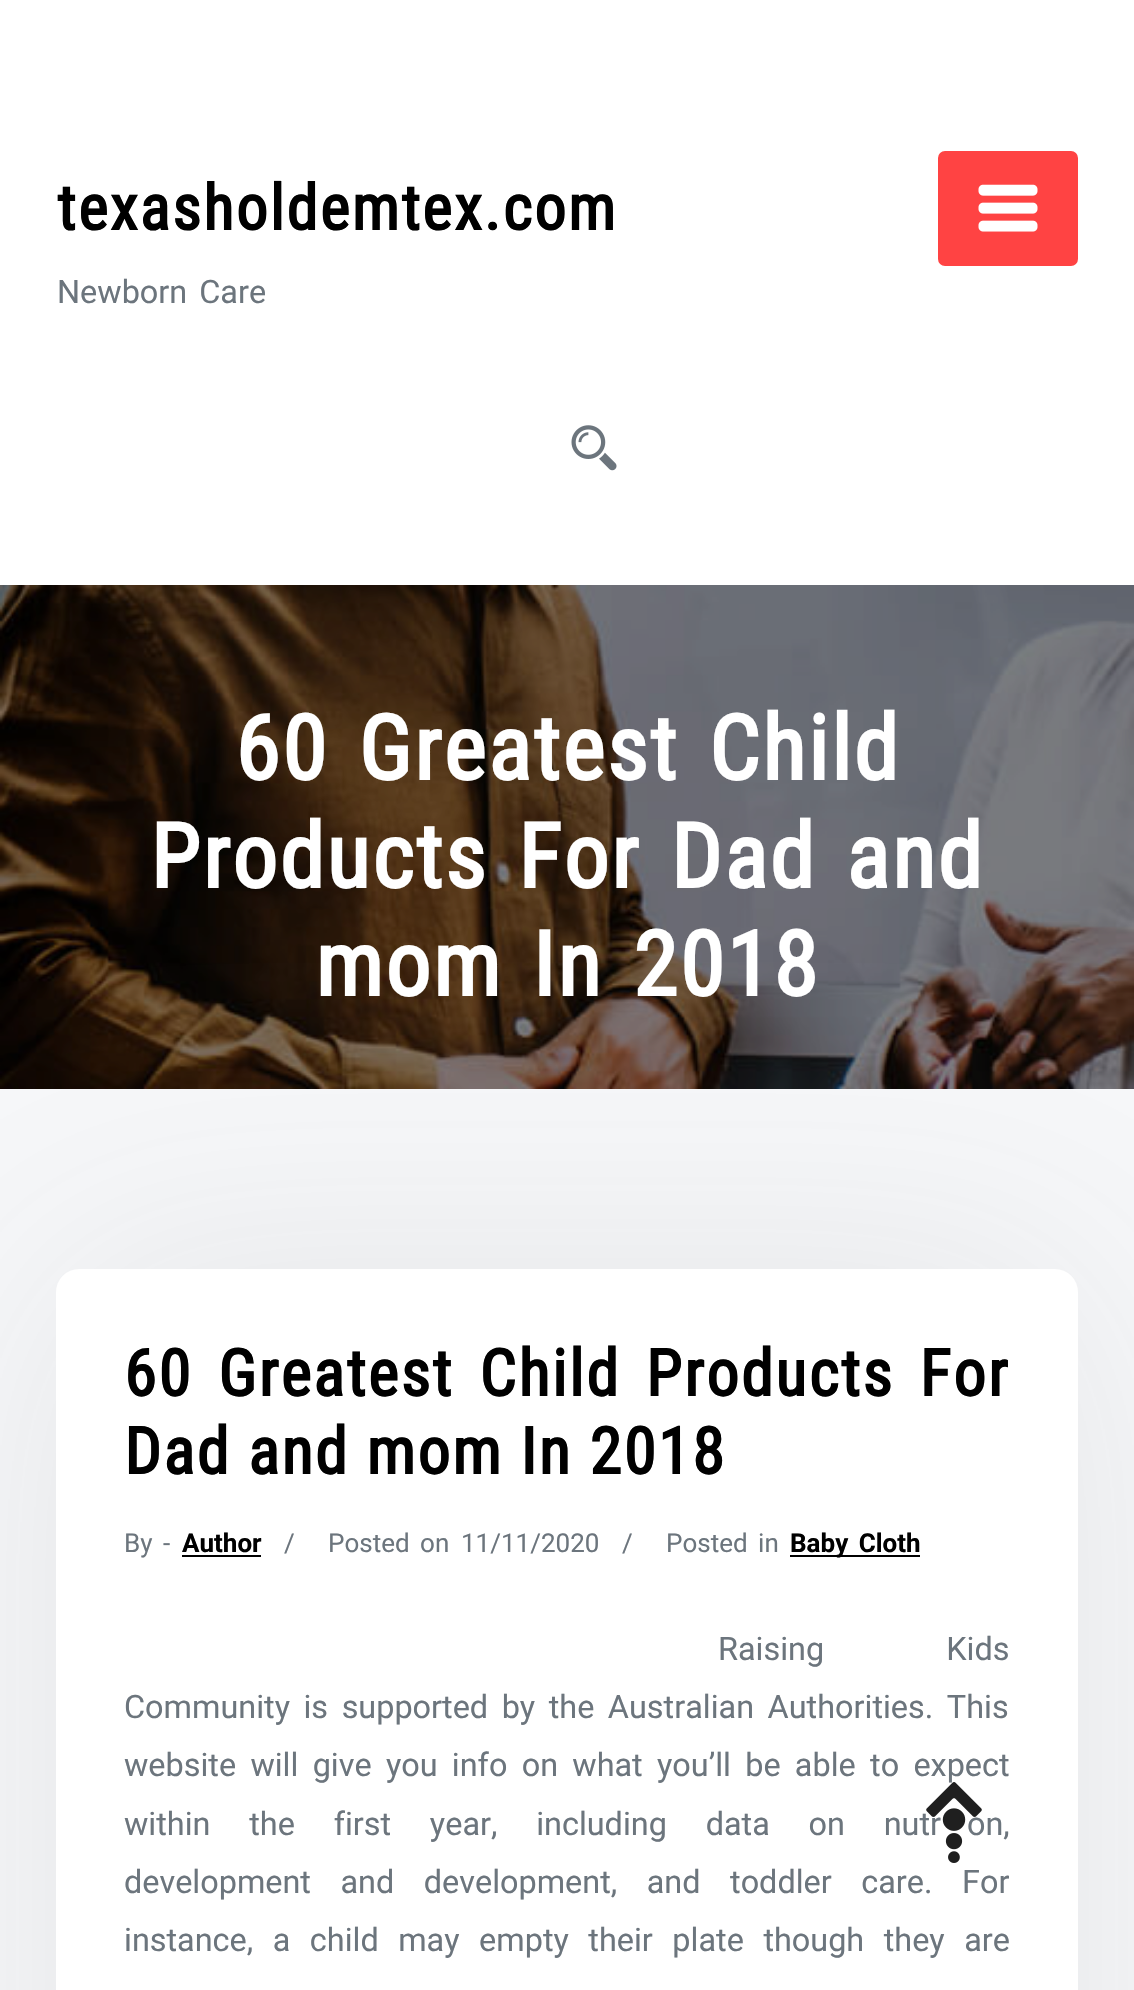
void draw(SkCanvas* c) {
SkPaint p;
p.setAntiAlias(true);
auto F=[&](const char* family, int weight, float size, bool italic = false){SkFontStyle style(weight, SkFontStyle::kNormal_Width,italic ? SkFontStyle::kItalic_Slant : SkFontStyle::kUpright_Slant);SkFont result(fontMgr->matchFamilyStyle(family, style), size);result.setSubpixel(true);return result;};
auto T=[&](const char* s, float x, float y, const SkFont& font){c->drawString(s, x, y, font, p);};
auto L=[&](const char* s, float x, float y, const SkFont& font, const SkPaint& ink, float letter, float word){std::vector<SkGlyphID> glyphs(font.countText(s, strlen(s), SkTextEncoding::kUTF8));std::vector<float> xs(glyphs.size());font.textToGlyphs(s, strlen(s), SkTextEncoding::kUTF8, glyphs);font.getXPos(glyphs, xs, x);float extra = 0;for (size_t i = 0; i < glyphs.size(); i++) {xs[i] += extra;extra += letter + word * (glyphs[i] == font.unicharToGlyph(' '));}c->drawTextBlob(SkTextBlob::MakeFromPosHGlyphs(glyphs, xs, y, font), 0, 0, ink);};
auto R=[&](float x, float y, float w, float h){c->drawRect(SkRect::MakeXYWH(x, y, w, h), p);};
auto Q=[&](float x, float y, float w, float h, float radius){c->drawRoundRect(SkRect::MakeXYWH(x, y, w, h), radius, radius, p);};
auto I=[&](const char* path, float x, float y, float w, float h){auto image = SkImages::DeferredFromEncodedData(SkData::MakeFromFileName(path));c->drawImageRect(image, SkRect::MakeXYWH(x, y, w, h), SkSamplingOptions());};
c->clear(0xfff6f7f9);
p.setColor(0xffffffff);
R(0,0,1134,585);
auto f1 = F("Roboto Condensed",700,63);
p.setColor(0xff000000);
L("texasholdemtex.com",57,230,f1,p,2.25,0);
p.setColor(0xffff4343);
c->drawRoundRect(SkRect::MakeXYWH(939,152,138,113),6,6,p);
p.setStroke(true);
p.setStrokeWidth(2);
c->drawRoundRect(SkRect::MakeXYWH(939,152,138,113),6,6,p);
I("1.png",978,184,60,48);
auto f2 = F("Roboto",400,32.4);
p.setStroke(false);
p.setColor(0xff6c757d);
L("Newborn Care",57,303,f2,p,0,4);
I("2.png",571,425,46,46);
I("3.png",0,585,1134,504);
auto f3 = F("Roboto Condensed",700,90);
p.setColor(0xffffffff);
L("60 Greatest Child",235,780,f3,p,2.25,7);
L("Products For Dad and",150,888,f3,p,2.25,7);
L("mom In 2018",315,996,f3,p,2.25,7);
p.setColor(0x1a4a4a4a);
p.setMaskFilter(SkMaskFilter::MakeBlur(kNormal_SkBlurStyle, 147.5));
c->drawRoundRect(SkRect::MakeXYWH(56,1269,1022,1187),23,23,p);
p.setMaskFilter(nullptr);
p.setColor(0xffffffff);
Q(56,1269,1022,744,23);
auto f4 = F("Roboto Condensed",700,64.75);
p.setColor(0xff000000);
L("60 Greatest Child Products For",124,1396,f4,p,2.25,8.5);
L("Dad and mom In 2018",124,1474,f4,p,2.25,0);
auto f5 = F("Roboto",400,26);
p.setColor(0xff6c757d);
L("By -",124,1552,f5,p,0,4);
auto f6 = F("Roboto",700,26);
p.setColor(0xff000000);
T("Author",182,1552,f6);
R(182,1555,79,2);
p.setColor(0xff6c757d);
T("/",284,1552,f5);
L("Posted on",328,1552,f5,p,0,4);
T("11/11/2020",461,1552,f5);
T("/",622,1552,f5);
L("Posted in",666,1552,f5,p,0,4);
p.setColor(0xff000000);
R(790,1555,130,2);
L("Baby Cloth",790,1552,f6,p,0,4);
p.setColor(0xff6c757d);
L("Raising Kids",718,1660,f2,p,0,114);
L("Community is supported by the Australian Authorities. This",124,1718,f2,p,0,5.5);
L("website will give you info on what you’ll be able to expect",124,1776,f2,p,0,6.25);
L("within the first year, including data on nutr",124,1835,f2,p,0,30.75);
L("on,",967,1835,f2,p,0,30.75);
L("development and development, and toddler care. For",124,1893,f2,p,0,21.5);
L("instance, a child may empty their plate though they are",124,1951,f2,p,0,11.5);
I("4.png",926,1782,56,81);
}
